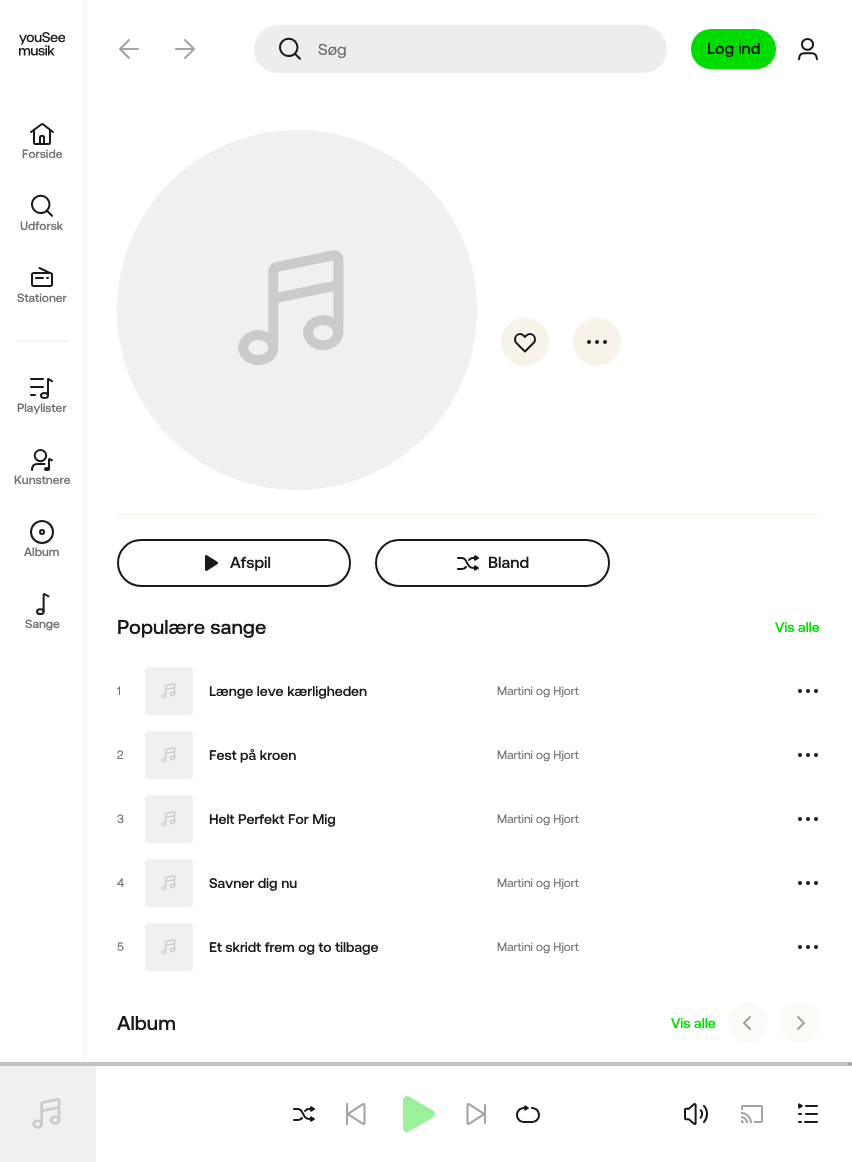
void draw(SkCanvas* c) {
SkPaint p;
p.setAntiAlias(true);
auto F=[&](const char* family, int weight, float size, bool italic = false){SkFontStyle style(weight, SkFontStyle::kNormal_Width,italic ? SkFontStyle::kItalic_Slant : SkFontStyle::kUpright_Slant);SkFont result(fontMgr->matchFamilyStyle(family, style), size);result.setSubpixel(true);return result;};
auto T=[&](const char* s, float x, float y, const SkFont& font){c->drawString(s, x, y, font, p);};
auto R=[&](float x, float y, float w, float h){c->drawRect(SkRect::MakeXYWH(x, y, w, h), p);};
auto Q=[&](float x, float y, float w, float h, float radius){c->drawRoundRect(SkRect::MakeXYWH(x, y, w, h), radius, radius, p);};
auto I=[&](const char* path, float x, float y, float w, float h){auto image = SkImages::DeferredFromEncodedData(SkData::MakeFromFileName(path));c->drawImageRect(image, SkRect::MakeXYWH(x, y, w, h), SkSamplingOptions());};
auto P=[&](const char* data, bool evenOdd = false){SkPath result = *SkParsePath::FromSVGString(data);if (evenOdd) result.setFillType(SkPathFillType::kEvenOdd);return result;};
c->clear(0xffffffff);
I("1.png",119,39,20,20);
I("2.png",175,39,20,20);
p.setColor(0xffededed);
Q(254,25,413,48,24);
I("3.png",279,37,22,23);
auto f1 = F("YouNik",400,16);
p.setColor(0xff686868);
T("Søg",318,55,f1);
p.setColor(0xff00dc00);
Q(691,29,85,40,20);
auto f2 = F("YouNik",500,16);
p.setColor(0xff191919);
T("Log ind",707,54,f2);
I("4.png",798,38,20,23);
p.setColor(0xfff6f3e9);
R(84,0,1,1062);
I("5.png",19,32,46,24);
I("6.png",30,123,24,22);
auto f3 = F("YouNik",500,12);
p.setColor(0xff707070);
T("Forside",22,158,f3);
I("7.png",31,194,22,23);
T("Udforsk",20,230,f3);
I("8.png",31,267,22,20);
T("Stationer",17,302,f3);
p.setColor(0xfff6f3e9);
R(16,340,52,2);
I("9.png",30,378,23,21);
p.setColor(0xff707070);
T("Playlister",17,412,f3);
I("10.png",31,449,22,22);
T("Kunstnere",14,484,f3);
I("11.png",30,520,24,24);
T("Album",24,556,f3);
I("12.png",36,593,14,22);
T("Sange",25,628,f3);
p.setColor(0xfff6f3ea);
c->drawCircle(297,310,180,p);
I("13.png",117,130,360,360);
p.setColor(0xfff7f3e9);
c->drawCircle(525,342,24,p);
I("14.png",514,333,22,20);
c->drawCircle(597,342,24,p);
I("15.png",587,340,20,4);
p.setColor(0xfff6f3e9);
R(117,514,703,1);
p.setStroke(true);
p.setStrokeWidth(2);
p.setColor(0xff191919);
c->drawRoundRect(SkRect::MakeXYWH(118,540,232,46),23,23,p);
I("16.png",205,555,13,16);
p.setStroke(false);
T("Afspil",230,568,f2);
p.setStroke(true);
c->drawRoundRect(SkRect::MakeXYWH(376,540,233,46),23,23,p);
I("17.png",457,555,22,16);
p.setStroke(false);
T("Bland",488,568,f2);
auto f4 = F("YouNik",500,20);
T("Populære sange",117,634,f4);
auto f5 = F("YouNik",500,14);
p.setColor(0xff00dc00);
T("Vis alle",775,632,f5);
auto f6 = F("YouNik",400,12);
p.setColor(0xff707070);
T("1",117,695,f6);
p.setColor(0xfff6f3e9);
Q(145,667,48,48,4);
I("18.png",145,667,48,48);
p.setColor(0xff191919);
T("Længe leve kærligheden",209,696,f5);
p.setColor(0xff707070);
T("Martini og Hjort",497,695,f6);
I("19.png",798,689,20,4);
T("2",117,759,f6);
p.setColor(0xfff6f3e9);
Q(145,731,48,48,4);
I("18.png",145,731,48,48);
p.setColor(0xff191919);
T("Fest på kroen",209,760,f5);
p.setColor(0xff707070);
T("Martini og Hjort",497,759,f6);
I("19.png",798,753,20,4);
T("3",117,823,f6);
p.setColor(0xfff6f3e9);
Q(145,795,48,48,4);
I("18.png",145,795,48,48);
p.setColor(0xff191919);
T("Helt Perfekt For Mig",209,824,f5);
p.setColor(0xff707070);
T("Martini og Hjort",497,823,f6);
I("19.png",798,817,20,4);
T("4",117,887,f6);
p.setColor(0xfff6f3e9);
Q(145,859,48,48,4);
I("18.png",145,859,48,48);
p.setColor(0xff191919);
T("Savner dig nu",209,888,f5);
p.setColor(0xff707070);
T("Martini og Hjort",497,887,f6);
I("19.png",798,881,20,4);
T("5",117,951,f6);
p.setColor(0xfff6f3e9);
Q(145,923,48,48,4);
I("18.png",145,923,48,48);
p.setColor(0xff191919);
T("Et skridt frem og to tilbage",209,952,f5);
p.setColor(0xff707070);
T("Martini og Hjort",497,951,f6);
I("19.png",798,945,20,4);
p.setColor(0xff191919);
T("Album",117,1030,f4);
p.setColor(0xff00dc00);
T("Vis alle",671,1028,f5);
p.setColor(0xfffcfaf6);
c->drawCircle(748,1023,20,p);
I("20.png",743,1016,8,14);
c->drawCircle(800,1023,20,p);
I("21.png",797,1016,8,14);
p.setColor(0xfffafafa);
R(850,1062,2,4);
p.setColor(0xffc4c4c4);
c->drawPath(P("M0 1062h850c1 0 2 1 2 2c0 1-1 2-2 2h-850z"),p);
p.setColor(0xffa3a3a3);
c->drawCircle(850,1064,2,p);
I("22.png",0,1066,96,96);
I("17.png",293,1106,22,16);
I("23.png",346,1103,20,22);
I("24.png",403,1096,32,36);
I("25.png",466,1103,20,22);
I("26.png",516,1105,24,18);
I("27.png",684,1103,24,22);
I("28.png",741,1105,22,18);
I("29.png",797,1103,21,20);
}
